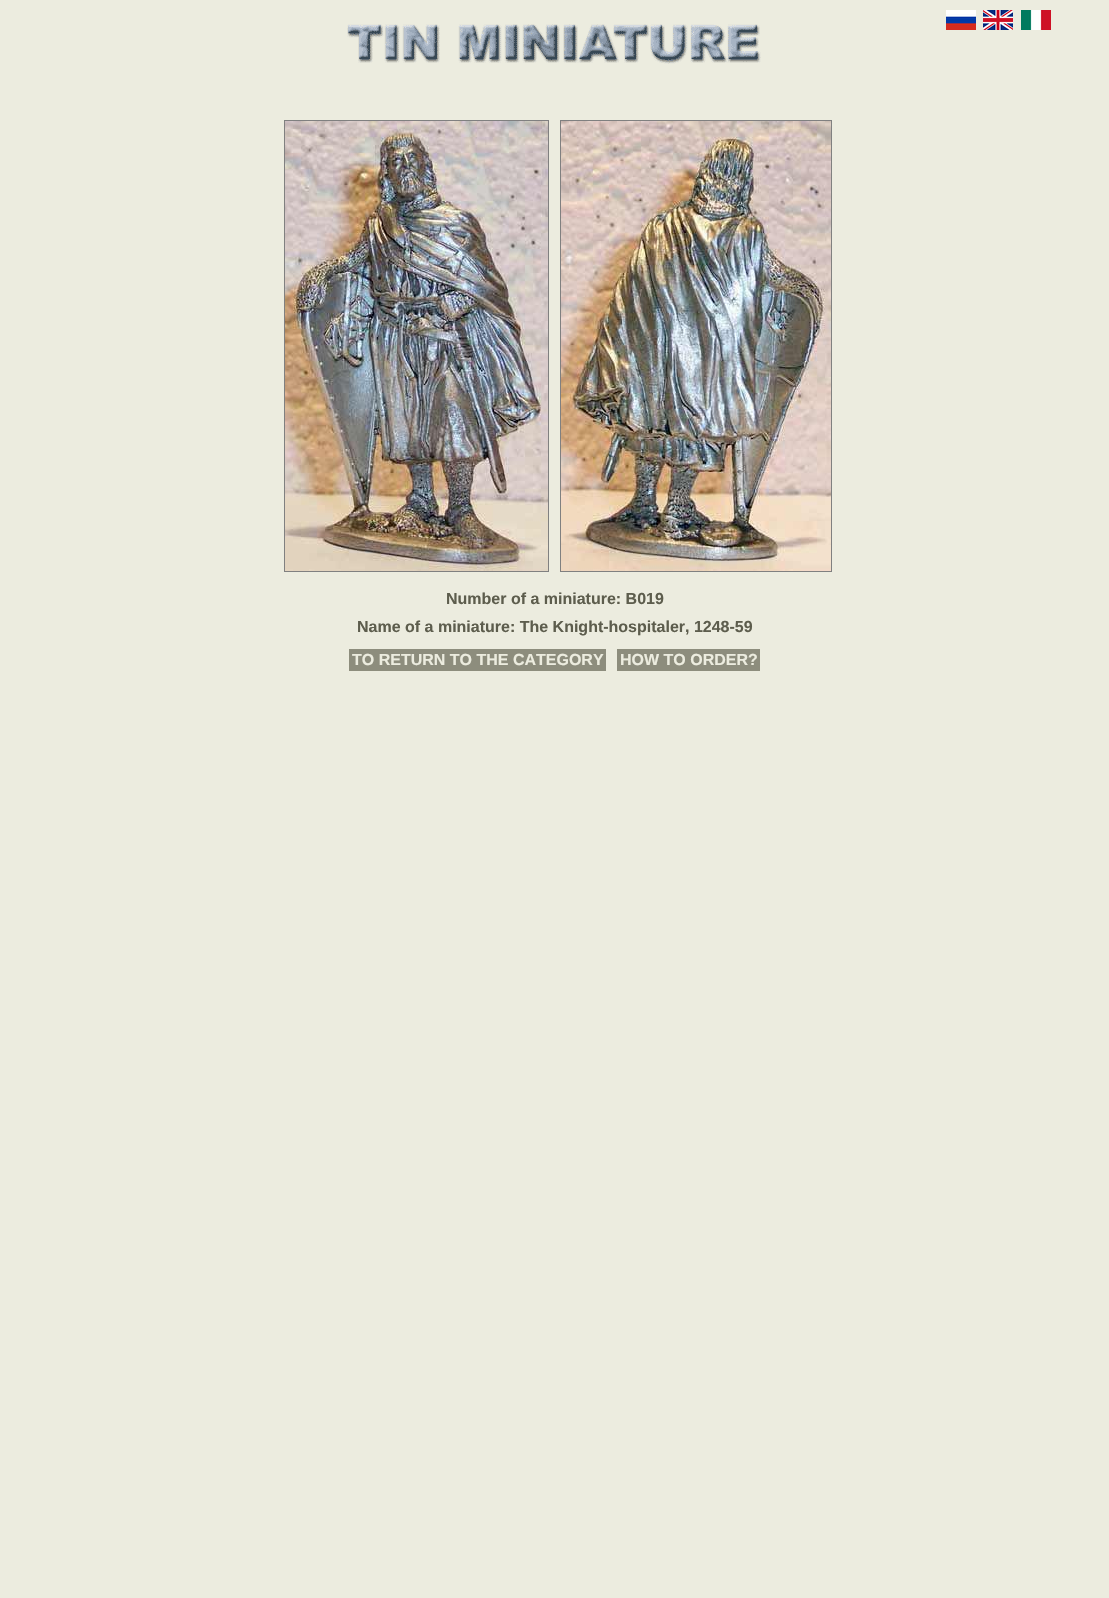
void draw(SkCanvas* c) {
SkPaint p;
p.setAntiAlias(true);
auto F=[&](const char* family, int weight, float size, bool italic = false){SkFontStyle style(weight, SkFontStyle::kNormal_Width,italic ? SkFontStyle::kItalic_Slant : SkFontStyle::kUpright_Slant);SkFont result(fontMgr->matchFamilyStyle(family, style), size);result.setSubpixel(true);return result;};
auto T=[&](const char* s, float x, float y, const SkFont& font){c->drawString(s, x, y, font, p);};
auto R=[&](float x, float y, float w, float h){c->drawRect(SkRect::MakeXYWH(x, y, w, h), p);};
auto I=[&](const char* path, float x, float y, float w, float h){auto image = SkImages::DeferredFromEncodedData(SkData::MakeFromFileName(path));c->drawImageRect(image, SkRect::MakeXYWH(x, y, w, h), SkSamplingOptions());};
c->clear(0xffececdf);
I("1.png",946,10,30,20);
I("2.png",983,10,30,20);
I("3.png",1021,10,30,20);
I("4.png",347,24,414,40);
p.setStroke(true);
p.setStrokeWidth(1);
p.setColor(0xff808080);
c->drawRect(SkRect::MakeXYWH(284.5,120.5,264,451),p);
I("5.png",285,121,263,450);
c->drawRect(SkRect::MakeXYWH(560.5,120.5,271,451),p);
I("6.png",561,121,270,450);
auto f1 = F("Liberation Sans",700,16);
p.setStroke(false);
p.setColor(0xff5d5d4d);
T("Number of a miniature: B019",446,604,f1);
T("Name of a miniature: The Knight-hospitaler, 1248-59",357,632,f1);
p.setColor(0xff8d8d7d);
R(349,649,257,22);
p.setColor(0xffececdf);
T("TO RETURN TO THE CATEGORY",352,665,f1);
p.setColor(0xff8d8d7d);
R(617,649,143,22);
p.setColor(0xffececdf);
T("HOW TO ORDER?",620,665,f1);
}
